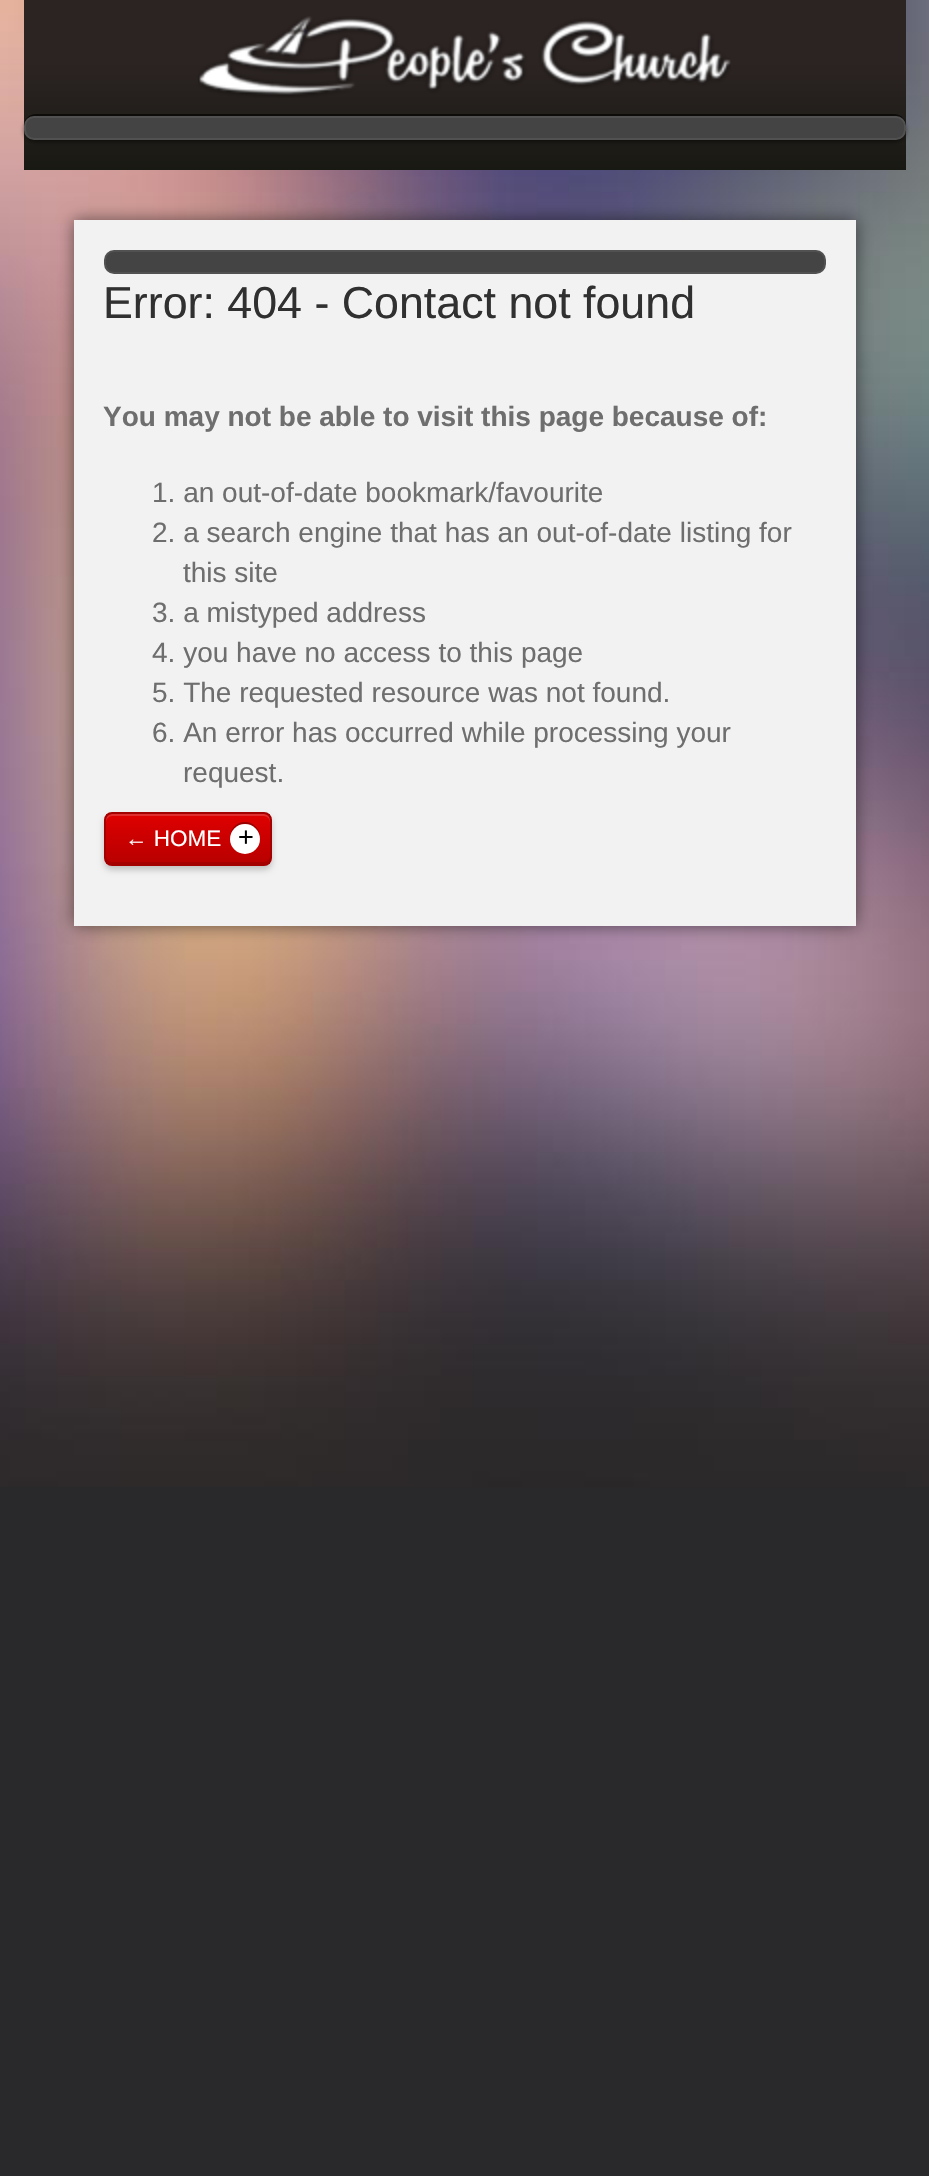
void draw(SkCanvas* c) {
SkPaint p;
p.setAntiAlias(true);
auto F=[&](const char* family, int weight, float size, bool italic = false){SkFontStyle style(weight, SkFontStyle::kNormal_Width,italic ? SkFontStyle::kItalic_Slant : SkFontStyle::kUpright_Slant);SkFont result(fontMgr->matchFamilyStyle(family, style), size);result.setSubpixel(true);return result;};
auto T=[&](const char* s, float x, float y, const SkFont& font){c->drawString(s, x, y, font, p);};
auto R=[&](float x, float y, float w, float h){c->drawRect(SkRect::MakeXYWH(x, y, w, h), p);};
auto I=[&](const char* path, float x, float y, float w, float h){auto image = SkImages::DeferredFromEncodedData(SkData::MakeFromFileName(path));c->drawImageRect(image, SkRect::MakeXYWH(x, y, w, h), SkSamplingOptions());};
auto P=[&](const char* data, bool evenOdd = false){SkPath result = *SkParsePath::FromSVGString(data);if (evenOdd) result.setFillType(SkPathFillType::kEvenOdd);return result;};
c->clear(0xff29282b);
I("1.png",0,0,929,1487);
{
const SkColor colors[] = {0xff2c2423,0xff2c2423,0xff191913};
const float stops[] = {0,.35,1};
const SkPoint ends[] = {{465,0}, {465,170}};
p.setShader(SkGradientShader::MakeLinear(ends, colors, stops, 3, SkTileMode::kClamp));
p.setAlpha(255);
}
R(24,0,882,170);
I("2.png",198,16,533,82);
p.setShader(nullptr);
p.setColor(0x80000000);
p.setMaskFilter(SkMaskFilter::MakeBlur(kNormal_SkBlurStyle, 2));
c->drawRoundRect(SkRect::MakeXYWH(24,118,882,24),12,12,p);
p.setMaskFilter(nullptr);
p.setColor(0x99000000);
c->drawPath(P("M36 114c-7 0-13 6-12 13c1-6 6-11 12-11h858c6 0 11 5 12 11c1-7-5-13-12-13z"),p);
p.setColor(0xff444444);
c->drawRoundRect(SkRect::MakeXYWH(25,117,880,22),9,9,p);
p.setStroke(true);
p.setStrokeWidth(2);
p.setColor(0xff515151);
c->drawRoundRect(SkRect::MakeXYWH(25,117,880,22),9,9,p);
p.setStroke(false);
p.setColor(0x80000000);
p.setMaskFilter(SkMaskFilter::MakeBlur(kNormal_SkBlurStyle, 8));
c->drawRect(SkRect::MakeXYWH(74,220,782,706),p);
p.setMaskFilter(nullptr);
p.setColor(0xfff2f2f2);
R(74,220,782,706);
p.setColor(0xff444444);
c->drawRoundRect(SkRect::MakeXYWH(105,251,720,22),9,9,p);
p.setStroke(true);
p.setColor(0xff515151);
c->drawRoundRect(SkRect::MakeXYWH(105,251,720,22),9,9,p);
auto f1 = F("Liberation Sans",400,44.75);
p.setStroke(false);
p.setColor(0xff303030);
T("Error: 404 - Contact not found",103,318,f1);
auto f2 = F("Liberation Sans",700,28);
p.setColor(0xff6e6e6e);
T("You may not be able to visit this page because of:",103,426,f2);
auto f3 = F("Liberation Sans",400,28);
T("1. an out-of-date bookmark/favourite",152,502,f3);
T("2. a search engine that has an out-of-date listing for",152,542,f3);
T("this site",183,582,f3);
T("3. a mistyped address",152,622,f3);
T("4. you have no access to this page",152,662,f3);
T("5. The requested resource was not found.",152,702,f3);
T("6. An error has occurred while processing your",152,742,f3);
T("request.",183,782,f3);
p.setColor(0x33000000);
p.setMaskFilter(SkMaskFilter::MakeBlur(kNormal_SkBlurStyle, 3));
c->drawRoundRect(SkRect::MakeXYWH(104,816,168,54),8,8,p);
p.setMaskFilter(nullptr);
c->save();
c->clipPath(P("M112 812h152c4.5 0 8 3.5 8 8v38c0 4.5-3.5 8-8 8h-152c-4.5 0-8-3.5-8-8v-38c0-4.5 3.5-8 8-8z"),true);
{
const SkColor colors[] = {0xffe00000,0xffcc0000,0xffb80000};
const float stops[] = {0,.45,1};
const SkPoint ends[] = {{188,814}, {188,864}};
p.setShader(SkGradientShader::MakeLinear(ends, colors, stops, 3, SkTileMode::kClamp));
p.setAlpha(255);
}
R(106,814,164,50);
c->restore();
p.setShader(nullptr);
p.setColor(0x33e1e1e1);
c->drawPath(P("M112 816h152c3 0 6 3 6 6v-2c0-3-3-6-6-6h-152c-3 0-6 3-6 6v2c0-3 3-6 6-6z"),p);
p.setColor(0x1a000000);
c->drawPath(P("M106 856v2c0 3 3 6 6 6h152c3 0 6-3 6-6v-2c0 3-3 6-6 6h-152c-3 0-6-3-6-6z"),p);
p.setStroke(true);
p.setColor(0xffa30000);
c->drawRoundRect(SkRect::MakeXYWH(105,813,166,52),7,7,p);
auto f4 = F("Liberation Sans",400,22.5);
p.setStroke(false);
p.setColor(0xffffffff);
T("← HOME",125,846,f4);
p.setColor(0x4d000000);
c->drawPath(P("M245 822c-8.5 0-15.5 7.5-15 16c1-18.5 29-18.5 30 0c.5-8.5-6.5-16-15-16z"),p);
p.setColor(0xffffffff);
c->drawCircle(245,839,15,p);
auto f5 = F("Liberation Sans",400,27);
p.setColor(0xff000000);
T("+",238,846,f5);
}
